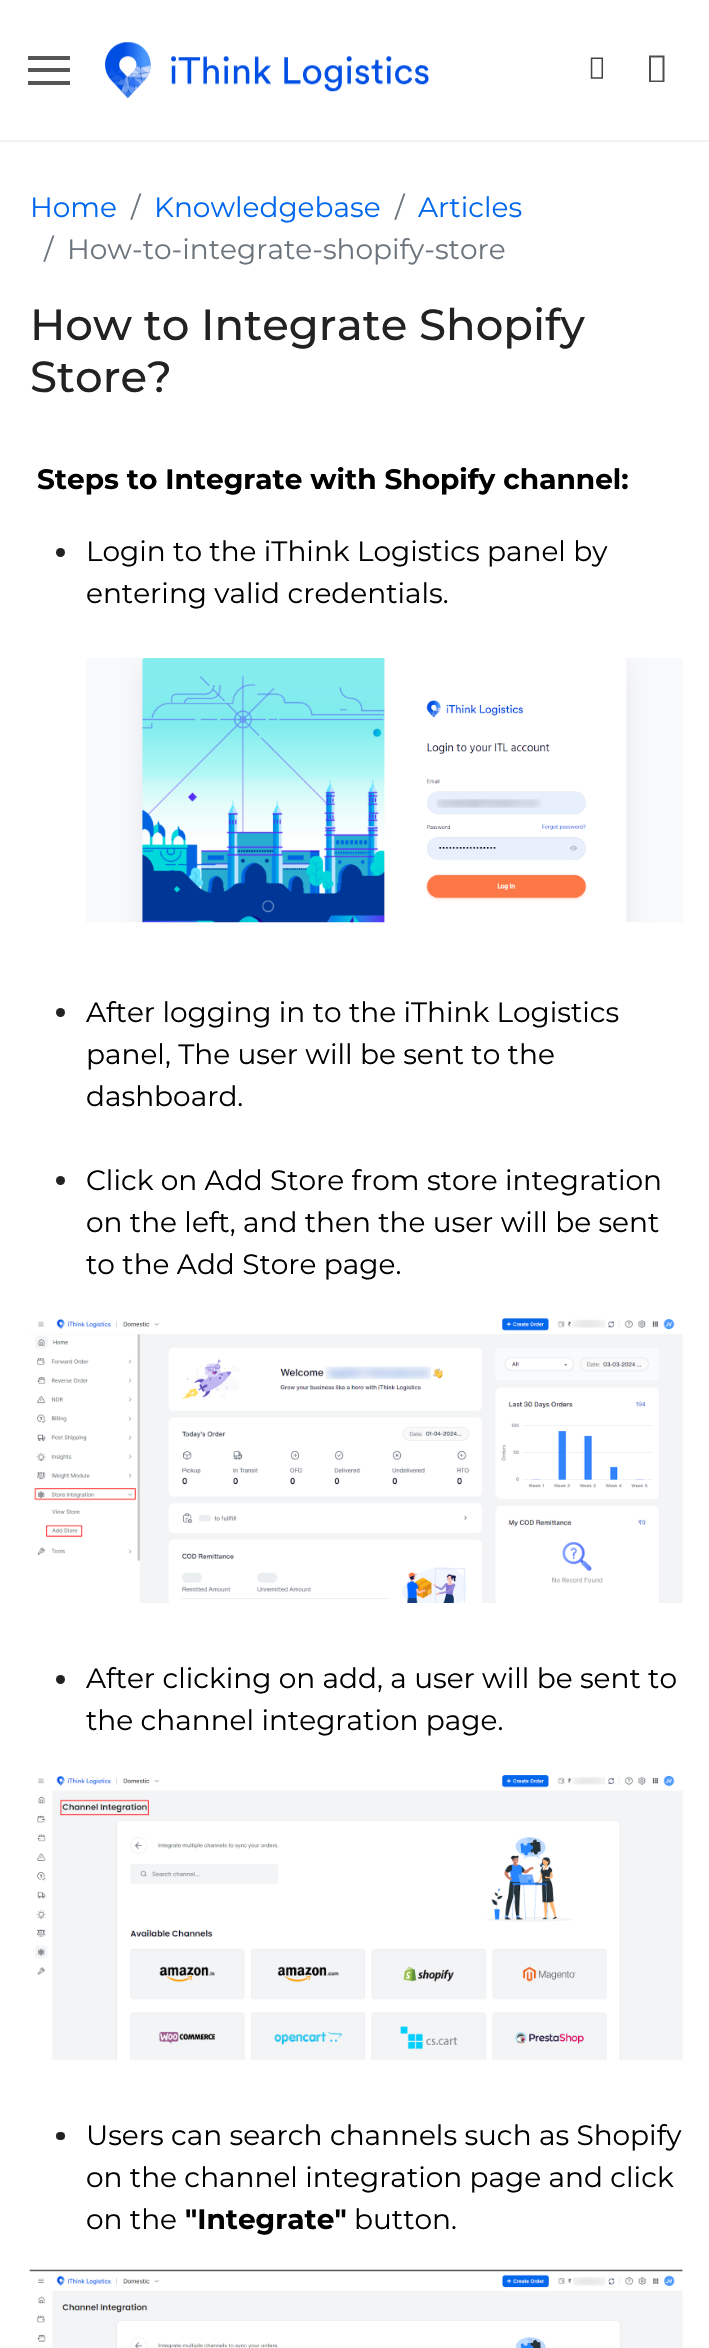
void draw(SkCanvas* c) {
SkPaint p;
p.setAntiAlias(true);
auto F=[&](const char* family, int weight, float size, bool italic = false){SkFontStyle style(weight, SkFontStyle::kNormal_Width,italic ? SkFontStyle::kItalic_Slant : SkFontStyle::kUpright_Slant);SkFont result(fontMgr->matchFamilyStyle(family, style), size);result.setSubpixel(true);return result;};
auto T=[&](const char* s, float x, float y, const SkFont& font){c->drawString(s, x, y, font, p);};
auto R=[&](float x, float y, float w, float h){c->drawRect(SkRect::MakeXYWH(x, y, w, h), p);};
auto Q=[&](float x, float y, float w, float h, float radius){c->drawRoundRect(SkRect::MakeXYWH(x, y, w, h), radius, radius, p);};
auto I=[&](const char* path, float x, float y, float w, float h){auto image = SkImages::DeferredFromEncodedData(SkData::MakeFromFileName(path));c->drawImageRect(image, SkRect::MakeXYWH(x, y, w, h), SkSamplingOptions());};
auto P=[&](const char* data, bool evenOdd = false){SkPath result = *SkParsePath::FromSVGString(data);if (evenOdd) result.setFillType(SkPathFillType::kEvenOdd);return result;};
c->clear(0xffffffff);
p.setStroke(true);
p.setStrokeWidth(2);
p.setColor(0xfff2f2f2);
c->drawRect(SkRect::MakeXYWH(-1,-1,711,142),p);
p.setStroke(false);
p.setColor(0xff555555);
R(28,56,42,4);
R(28,68,42,4);
R(28,81,42,4);
I("1.png",105,42,324,57);
I("2.png",590,57,14,22);
p.setColor(0xff4e4e4e);
c->drawPath(P("M649 82v-26.5h15.5v26.5zm2-1.5h11.5v-23h-11.5z"),p);
auto f1 = F("Montserrat",400,28);
p.setColor(0xff0168ed);
T("Home",30,217,f1);
p.setColor(0xff6c757d);
T("/",131,217,f1);
p.setColor(0xff0168ed);
T("Knowledgebase",154,217,f1);
p.setColor(0xff6c757d);
T("/",395,217,f1);
p.setColor(0xff0168ed);
T("Articles",418,217,f1);
p.setColor(0xff6c757d);
T("/",44,259,f1);
T("How-to-integrate-shopify-store",67,259,f1);
auto f2 = F("Montserrat",500,43.5);
p.setColor(0xff222222);
T("How to Integrate Shopify",30,340,f2);
T("Store?",30,392,f2);
auto f3 = F("Montserrat",700,28);
p.setColor(0xff000000);
T("Steps to Integrate with Shopify channel:",37,489,f3);
p.setColor(0xff222222);
c->drawCircle(60.5,552.5,4.5,p);
p.setColor(0xff000000);
T("Login to the iThink Logistics panel by",86,561,f1);
T("entering valid credentials.",86,603,f1);
I("3.png",86,658,597,265);
p.setColor(0xff222222);
c->drawCircle(60.5,1012.5,4.5,p);
p.setColor(0xff000000);
T("After logging in to the iThink Logistics",86,1022,f1);
T("panel, The user will be sent to the",86,1064,f1);
T("dashboard.",86,1106,f1);
p.setColor(0xff222222);
c->drawCircle(60.5,1180.5,4.5,p);
p.setColor(0xff000000);
T("Click on Add Store from store integration",86,1190,f1);
T("on the left, and then the user will be sent",86,1232,f1);
T("to the Add Store page.",86,1274,f1);
I("4.png",30,1318,653,285);
p.setColor(0xff222222);
c->drawCircle(60.5,1679.5,4.5,p);
p.setColor(0xff000000);
T("After clicking on add, a user will be sent to",86,1688,f1);
T("the channel integration page.",86,1730,f1);
I("5.png",35,1775,648,285);
p.setColor(0xff222222);
Q(56,2132,9,8,4);
p.setColor(0xff000000);
T("Users can search channels such as Shopify",86,2145,f1);
T("on the channel integration page and click",86,2187,f1);
T("on the",86,2229,f1);
T("\"Integrate\"",185,2229,f3);
T("button.",354,2229,f1);
I("6.png",29,2269,654,79);
}
